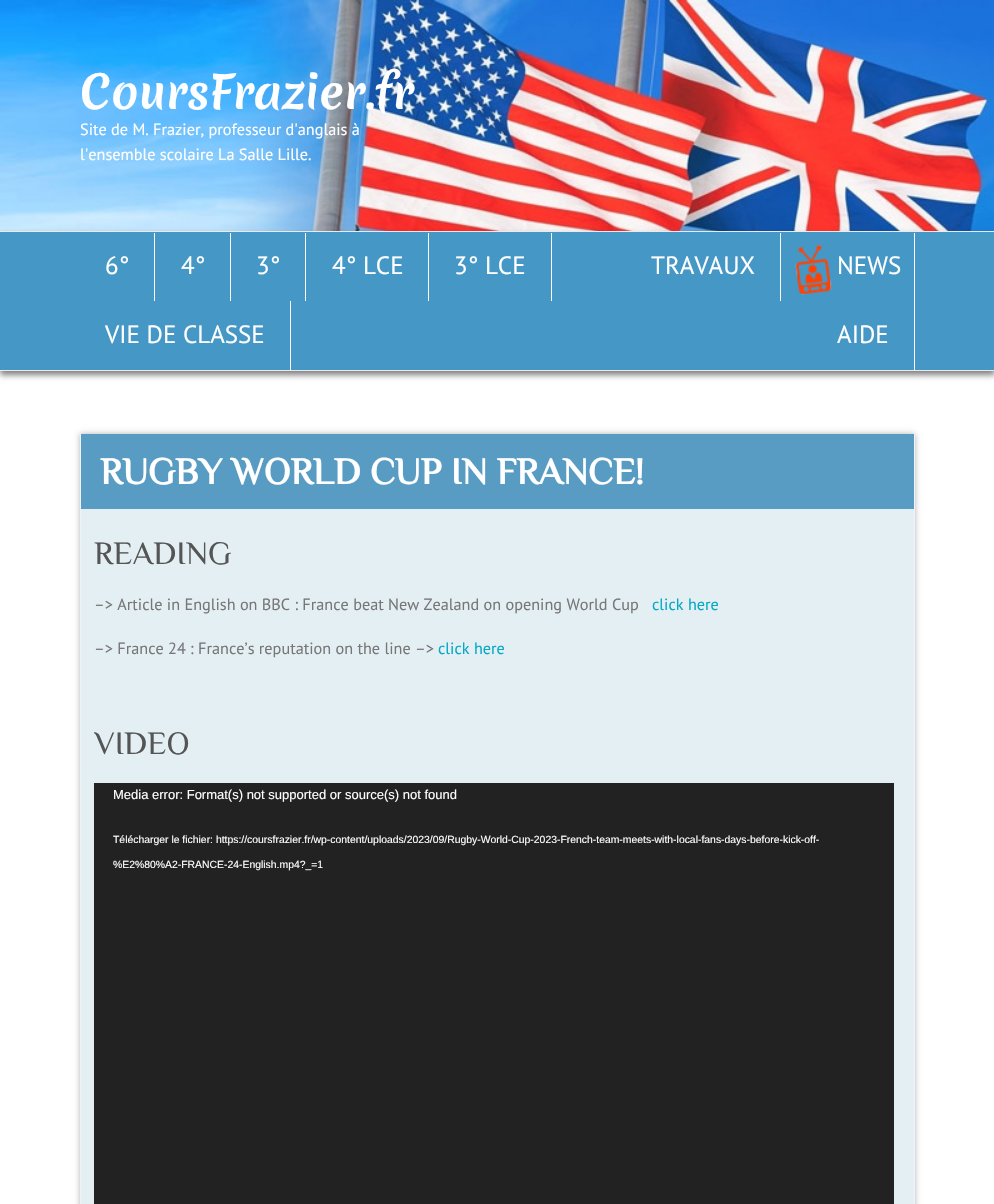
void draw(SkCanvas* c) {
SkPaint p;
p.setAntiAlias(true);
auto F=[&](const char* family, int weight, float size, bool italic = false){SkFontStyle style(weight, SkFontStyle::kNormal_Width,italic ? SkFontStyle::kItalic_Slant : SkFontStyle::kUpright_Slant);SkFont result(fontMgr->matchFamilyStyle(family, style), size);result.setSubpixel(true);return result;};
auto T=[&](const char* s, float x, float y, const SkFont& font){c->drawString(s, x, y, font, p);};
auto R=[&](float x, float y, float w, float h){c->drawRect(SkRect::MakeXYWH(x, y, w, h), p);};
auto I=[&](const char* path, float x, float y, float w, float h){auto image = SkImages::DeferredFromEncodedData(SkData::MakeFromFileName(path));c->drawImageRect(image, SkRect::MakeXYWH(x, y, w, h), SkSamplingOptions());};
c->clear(0xffffffff);
I("1.png",0,0,994,231);
auto f1 = F("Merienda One",400,45);
p.setColor(0xffffffff);
T("CoursFrazier.fr",80,109,f1);
auto f2 = F("PT Sans",400,16.25);
T("Site de M. Frazier, professeur d'anglais à",80,135,f2);
T("l'ensemble scolaire La Salle Lille.",80,160,f2);
p.setColor(0x80000000);
p.setMaskFilter(SkMaskFilter::MakeBlur(kNormal_SkBlurStyle, 3));
c->drawRect(SkRect::MakeXYWH(0,235,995,140),p);
p.setMaskFilter(nullptr);
p.setColor(0xff4597c6);
R(0,232,994,138);
p.setColor(0xffeaeaea);
R(0,231,994,1);
R(0,370,994,1);
p.setColor(0xffffffff);
R(154,233,1,68);
auto f3 = F("PT Sans",400,25);
T("6°",105,274,f3);
R(230,233,1,68);
T("4°",181,274,f3);
R(305,233,1,68);
T("3°",256,274,f3);
R(428,233,1,68);
T("4° LCE",332,274,f3);
R(551,233,1,68);
T("3° LCE",454,274,f3);
R(780,233,1,68);
T("TRAVAUX",651,274,f3);
I("2.png",795,245,37,50);
R(914,233,1,137);
T("NEWS",837,274,f3);
R(290,301,1,69);
T("VIE DE CLASSE",105,343,f3);
T("AIDE",837,343,f3);
p.setColor(0x4d000000);
p.setMaskFilter(SkMaskFilter::MakeBlur(kNormal_SkBlurStyle, 3));
c->drawRect(SkRect::MakeXYWH(80,434,835,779),p);
p.setMaskFilter(nullptr);
p.setColor(0xffe4eff4);
R(81,509,833,695);
p.setColor(0xffeff3f7);
R(914,434,1,770);
R(80,434,1,770);
p.setColor(0xff599cc3);
R(81,434,833,75);
auto f4 = F("Philosopher",700,37.5);
p.setColor(0xffffffff);
T("RUGBY WORLD CUP IN FRANCE!",100,484,f4);
auto f5 = F("Philosopher",400,32.5);
p.setColor(0xff555555);
T("READING",94,564,f5);
p.setColor(0xff777777);
T("–> Article in English on BBC : France beat New Zealand on opening World Cup",94,610,f2);
p.setColor(0xff05a9c5);
T("click here",652,610,f2);
p.setColor(0xff777777);
T("–> France 24 : France’s reputation on the line –>",94,654,f2);
p.setColor(0xff05a9c5);
T("click here",438,654,f2);
c->save();
c->clipRect(SkRect::MakeXYWH(94,534,807,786));
p.setColor(0xff555555);
T("VIDEO",94,754,f5);
c->restore();
p.setColor(0xff222222);
R(94,783,800,421);
auto f6 = F("Liberation Sans",400,13);
p.setColor(0xffffffff);
T("Media error: Format(s) not supported or source(s) not found",113,799,f6);
auto f7 = F("Liberation Sans",400,10.4);
T("Télécharger le fichier: https://coursfrazier.fr/wp-content/uploads/2023/09/Rugby-World-Cup-2023-French-team-meets-with-local-fans-days-before-kick-off-",113,843,f7);
T("%E2%80%A2-FRANCE-24-English.mp4?_=1",113,868,f7);
}
